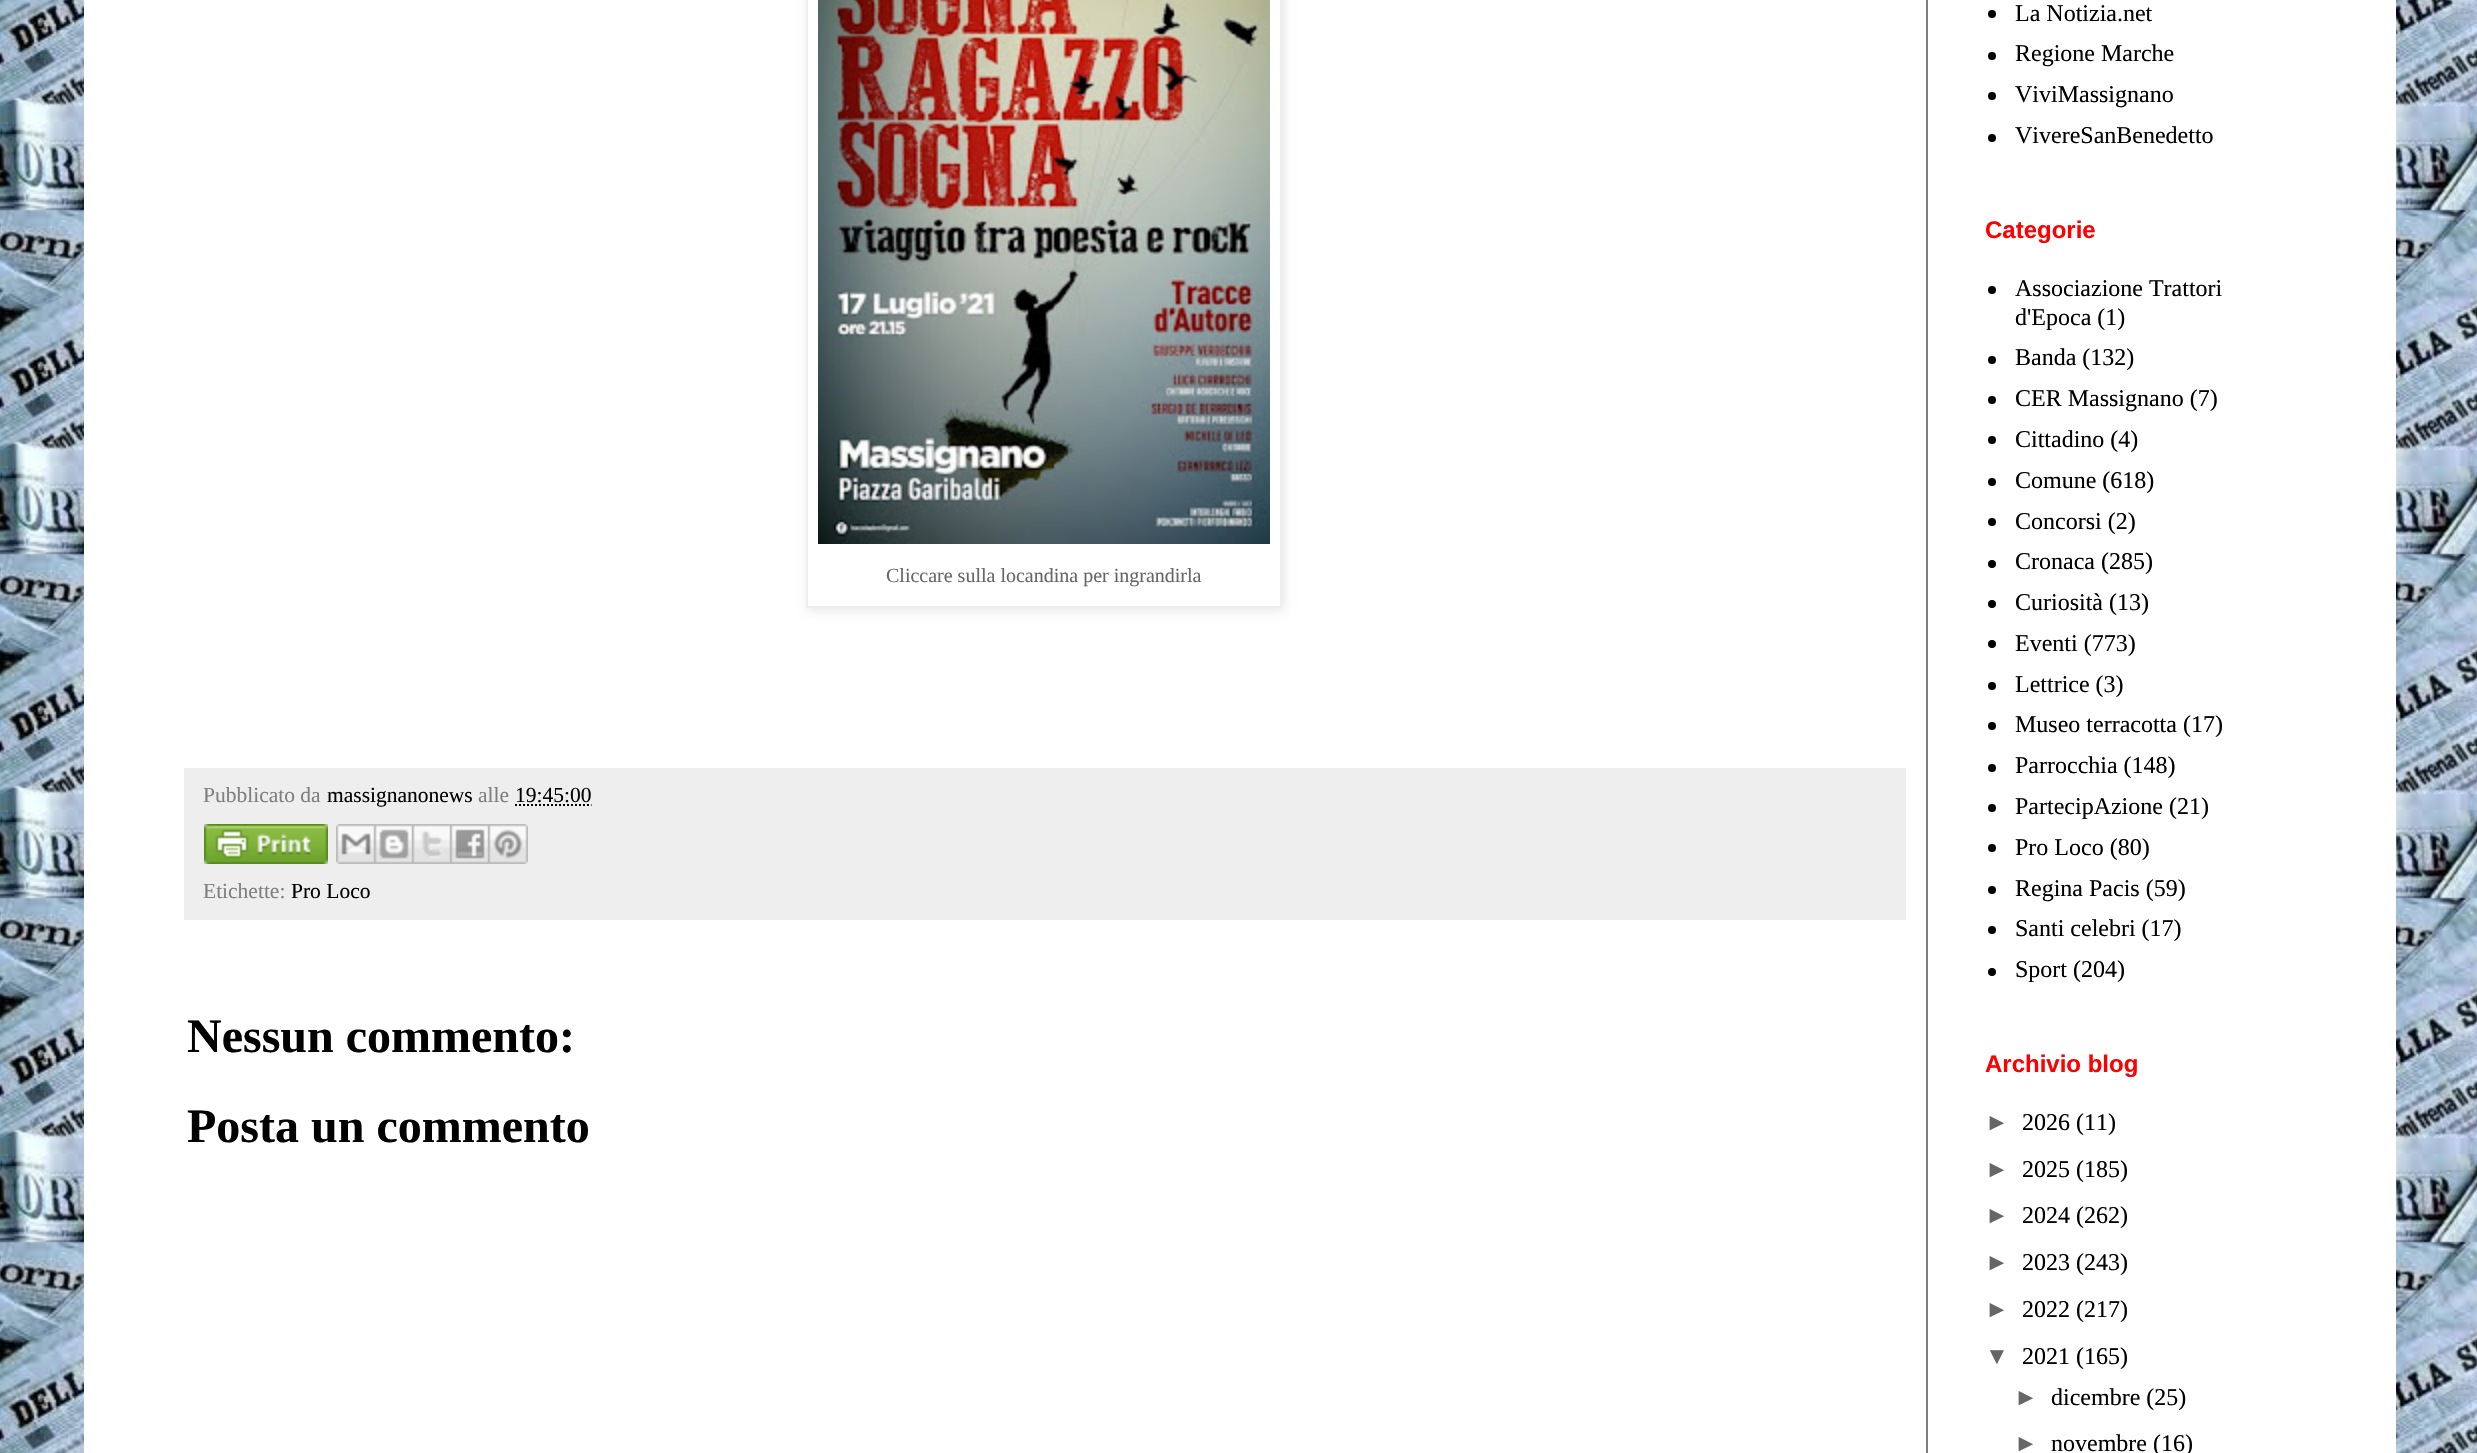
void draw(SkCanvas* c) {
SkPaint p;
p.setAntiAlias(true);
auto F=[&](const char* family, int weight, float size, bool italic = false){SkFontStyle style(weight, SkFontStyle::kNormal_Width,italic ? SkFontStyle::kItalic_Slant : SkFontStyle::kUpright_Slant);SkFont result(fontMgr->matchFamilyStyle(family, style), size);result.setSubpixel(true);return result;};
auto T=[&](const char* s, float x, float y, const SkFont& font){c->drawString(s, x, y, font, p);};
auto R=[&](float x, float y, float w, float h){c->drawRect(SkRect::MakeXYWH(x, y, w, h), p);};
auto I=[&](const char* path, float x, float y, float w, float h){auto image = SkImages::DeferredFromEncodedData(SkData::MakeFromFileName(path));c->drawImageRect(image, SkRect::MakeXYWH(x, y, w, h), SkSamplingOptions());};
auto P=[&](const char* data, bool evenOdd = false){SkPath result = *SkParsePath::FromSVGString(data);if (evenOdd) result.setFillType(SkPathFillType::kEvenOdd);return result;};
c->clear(0xffffffff);
I("1.png",0,0,2477,1453);
p.setColor(0xffffffff);
R(84,0,2312,1453);
p.setColor(0xff7f7f7f);
R(1926,0,2,1453);
c->save();
c->clipPath(P("M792 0h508v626h-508zm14-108h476v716h-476z",true),true);
p.setColor(0x1a000000);
p.setMaskFilter(SkMaskFilter::MakeBlur(kNormal_SkBlurStyle, 5));
c->drawRect(SkRect::MakeXYWH(808,-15,476,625),p);
p.setMaskFilter(nullptr);
c->restore();
p.setStroke(true);
p.setStrokeWidth(2);
p.setColor(0xffeeeeee);
c->drawRect(SkRect::MakeXYWH(807,-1,474,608),p);
I("2.png",818,0,452,544);
auto f1 = F("Liberation Serif",400,20);
p.setStroke(false);
p.setColor(0xff666666);
T("Cliccare sulla locandina per ingrandirla",886,582,f1);
p.setColor(0xffeeeeee);
R(184,768,1722,152);
auto f2 = F("Liberation Serif",400,21.5);
p.setColor(0xff7f7f7f);
T("Pubblicato da",203,802,f2);
p.setColor(0xff000000);
T("massignanonews",327,802,f2);
p.setColor(0xff7f7f7f);
T("alle",478,802,f2);
p.setColor(0xff000000);
T("19:45:00",515,802,f2);
p.setStroke(true);
p.setPathEffect(SkDashPathEffect::Make({{2,2}}, 0));
c->drawPath(P("M515 805h76.5"),p);
p.setPathEffect(nullptr);
I("3.png",204,824,124,40);
I("4.png",336,824,38,40);
I("5.png",374,824,38,40);
I("6.png",412,824,38,40);
I("7.png",450,824,38,40);
I("8.png",488,824,40,40);
p.setStroke(false);
p.setColor(0xff7f7f7f);
T("Etichette:",203,898,f2);
p.setColor(0xff000000);
T("Pro Loco",291,898,f2);
auto f3 = F("Liberation Serif",700,48);
T("Nessun commento:",187,1052,f3);
T("Posta un commento",187,1142,f3);
c->drawCircle(1992,14,4,p);
auto f4 = F("Liberation Serif",400,24);
T("La Notizia.net",2015,21,f4);
c->drawCircle(1992,56,4,p);
T("Regione Marche",2015,61,f4);
c->drawCircle(1992,96,4,p);
T("ViviMassignano",2015,102,f4);
c->drawCircle(1992,138,4,p);
T("VivereSanBenedetto",2015,143,f4);
auto f5 = F("Liberation Sans",700,24);
p.setColor(0xffff0000);
T("Categorie",1985,238,f5);
p.setColor(0xff000000);
c->drawCircle(1992,290,4,p);
T("Associazione Trattori",2015,296,f4);
T("d'Epoca (1)",2015,325,f4);
c->drawCircle(1992,360,4,p);
T("Banda (132)",2015,365,f4);
c->drawCircle(1992,400,4,p);
T("CER Massignano (7)",2015,406,f4);
c->drawCircle(1992,440,4,p);
T("Cittadino (4)",2015,447,f4);
c->drawCircle(1992,482,4,p);
T("Comune (618)",2015,488,f4);
c->drawCircle(1992,522,4,p);
T("Concorsi (2)",2015,529,f4);
c->drawCircle(1992,564,4,p);
T("Cronaca (285)",2015,569,f4);
c->drawCircle(1992,604,4,p);
T("Curiosità (13)",2015,610,f4);
c->drawCircle(1992,644,4,p);
T("Eventi (773)",2015,651,f4);
c->drawCircle(1992,686,4,p);
T("Lettrice (3)",2015,692,f4);
c->drawCircle(1992,726,4,p);
T("Museo terracotta (17)",2015,732,f4);
c->drawCircle(1992,768,4,p);
T("Parrocchia (148)",2015,773,f4);
c->drawCircle(1992,808,4,p);
T("PartecipAzione (21)",2015,814,f4);
c->drawCircle(1992,848,4,p);
T("Pro Loco (80)",2015,855,f4);
c->drawCircle(1992,890,4,p);
T("Regina Pacis (59)",2015,896,f4);
c->drawCircle(1992,930,4,p);
T("Santi celebri (17)",2015,936,f4);
c->drawCircle(1992,972,4,p);
T("Sport (204)",2015,977,f4);
p.setColor(0xffff0000);
T("Archivio blog",1985,1072,f5);
auto f6 = F("Liberation Sans",400,24);
p.setColor(0xff666666);
T("►",1985,1130,f6);
p.setColor(0xff000000);
T("2026 (11)",2022,1130,f4);
p.setColor(0xff666666);
T("►",1985,1177,f6);
p.setColor(0xff000000);
T("2025 (185)",2022,1177,f4);
p.setColor(0xff666666);
T("►",1985,1223,f6);
p.setColor(0xff000000);
T("2024 (262)",2022,1223,f4);
p.setColor(0xff666666);
T("►",1985,1270,f6);
p.setColor(0xff000000);
T("2023 (243)",2022,1270,f4);
p.setColor(0xff666666);
T("►",1985,1317,f6);
p.setColor(0xff000000);
T("2022 (217)",2022,1317,f4);
p.setColor(0xff666666);
T("▼",1985,1364,f6);
p.setColor(0xff000000);
T("2021 (165)",2022,1364,f4);
p.setColor(0xff666666);
T("►",2014,1405,f6);
p.setColor(0xff000000);
T("dicembre (25)",2051,1405,f4);
p.setColor(0xff666666);
T("►",2014,1451,f6);
p.setColor(0xff000000);
T("novembre (16)",2051,1451,f4);
}
